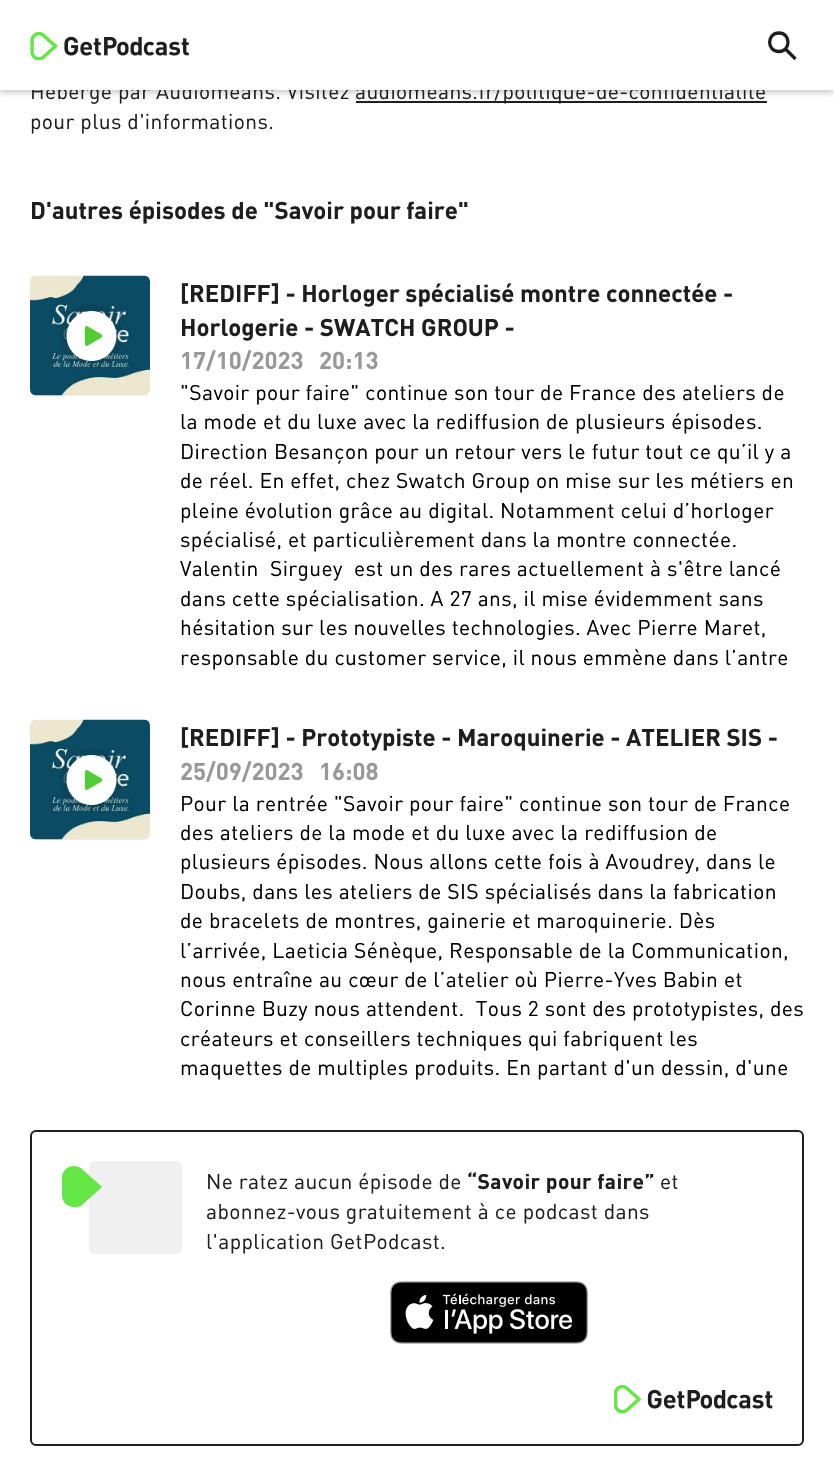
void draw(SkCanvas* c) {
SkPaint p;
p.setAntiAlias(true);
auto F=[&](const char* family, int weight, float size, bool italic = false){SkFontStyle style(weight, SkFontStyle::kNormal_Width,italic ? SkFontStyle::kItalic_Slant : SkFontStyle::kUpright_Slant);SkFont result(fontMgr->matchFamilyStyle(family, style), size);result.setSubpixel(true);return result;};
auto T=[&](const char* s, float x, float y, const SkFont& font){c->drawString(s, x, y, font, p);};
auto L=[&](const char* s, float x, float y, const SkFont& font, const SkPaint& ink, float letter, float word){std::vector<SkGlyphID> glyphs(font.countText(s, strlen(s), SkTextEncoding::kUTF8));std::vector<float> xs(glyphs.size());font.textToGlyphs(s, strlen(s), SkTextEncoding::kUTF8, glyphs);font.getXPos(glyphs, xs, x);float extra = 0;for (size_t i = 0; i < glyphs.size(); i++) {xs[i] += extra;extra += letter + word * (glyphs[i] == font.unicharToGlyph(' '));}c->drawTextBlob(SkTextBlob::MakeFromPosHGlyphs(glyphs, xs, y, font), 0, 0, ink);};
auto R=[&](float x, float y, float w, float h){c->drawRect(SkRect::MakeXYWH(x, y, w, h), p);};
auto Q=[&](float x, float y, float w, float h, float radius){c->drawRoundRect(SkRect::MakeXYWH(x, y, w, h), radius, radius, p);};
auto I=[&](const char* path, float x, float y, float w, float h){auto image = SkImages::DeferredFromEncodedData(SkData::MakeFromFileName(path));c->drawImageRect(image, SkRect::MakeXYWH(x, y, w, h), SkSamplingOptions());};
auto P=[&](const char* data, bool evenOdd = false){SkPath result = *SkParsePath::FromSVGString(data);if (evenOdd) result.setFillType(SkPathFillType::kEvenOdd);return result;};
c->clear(0xffffffff);
p.setColor(0xff1e1e1e);
R(356,101,411,2);
p.setColor(0x33000000);
p.setMaskFilter(SkMaskFilter::MakeBlur(kNormal_SkBlurStyle, 3));
c->drawRect(SkRect::MakeXYWH(0,3,834,90),p);
p.setMaskFilter(nullptr);
auto f1 = F("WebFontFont",400,21);
p.setColor(0xff1e1e1e);
L("Hébergé par Audiomeans. Visitez",30,99,f1,p,.38,0);
L("audiomeans.fr/politique-de-confidentialite",355,99,f1,p,.38,0);
p.setColor(0xffffffff);
R(0,0,834,90);
I("1.png",30,32,159,28);
p.setStroke(true);
p.setStrokeWidth(3.3);
p.setColor(0xff1e1e1e);
c->drawPath(P("M779 51.5c-12.5 0-12.5-18.5 0-18.5c12 0 12 18.5 0 18.5zm6.5-2.5l10 10z"),p);
p.setStroke(false);
L("pour plus d'informations.",30,129,f1,p,.38,0);
auto f2 = F("WebFontFont",700,24);
T("D'autres épisodes de \"Savoir pour faire\"",30,219,f2);
p.setColor(0xfff0f0f0);
Q(30,276,120,120,6);
I("2.png",30,275,120,121);
I("3.png",66,311,51,50);
p.setStroke(true);
p.setStrokeWidth(6.3);
p.setColor(0x14000000);
c->drawCircle(91.5,336,28.5,p);
p.setStroke(false);
p.setColor(0xff1e1e1e);
T("[REDIFF] - Horloger spécialisé montre connectée -",180,302,f2);
T("Horlogerie - SWATCH GROUP -",180,336,f2);
p.setColor(0xff989898);
T("17/10/2023",180,369,f2);
T("20:13",319,369,f2);
p.setColor(0xff000000);
L("\"Savoir pour faire\" continue son tour de France des ateliers de",180,400,f1,p,.38,0);
L("la mode et du luxe avec la rediffusion de plusieurs épisodes.",180,429,f1,p,.38,0);
L("Direction Besançon pour un retour vers le futur tout ce qu’il y a",180,459,f1,p,.38,0);
L("de réel. En effet, chez Swatch Group on mise sur les métiers en",180,488,f1,p,.38,0);
L("pleine évolution grâce au digital. Notamment celui d’horloger",180,518,f1,p,.38,0);
L("spécialisé, et particulièrement dans la montre connectée.",180,547,f1,p,.38,0);
L("Valentin  Sirguey  est un des rares actuellement à s'être lancé",180,576,f1,p,.38,0);
L("dans cette spécialisation. A 27 ans, il mise évidemment sans",180,606,f1,p,.38,0);
L("hésitation sur les nouvelles technologies. Avec Pierre Maret,",180,635,f1,p,.38,0);
L("responsable du customer service, il nous emmène dans l’antre",180,665,f1,p,.38,0);
p.setColor(0xfff0f0f0);
Q(30,720,120,120,6);
I("4.png",30,719,120,121);
I("5.png",66,755,51,50);
p.setStroke(true);
p.setColor(0x14000000);
c->drawCircle(91.5,780,28.5,p);
p.setStroke(false);
p.setColor(0xff1e1e1e);
T("[REDIFF] - Prototypiste - Maroquinerie - ATELIER SIS -",180,746,f2);
p.setColor(0xff989898);
T("25/09/2023",180,780,f2);
T("16:08",319,780,f2);
p.setColor(0xff000000);
L("Pour la rentrée \"Savoir pour faire\" continue son tour de France",180,811,f1,p,.38,0);
L("des ateliers de la mode et du luxe avec la rediffusion de",180,840,f1,p,.38,0);
L("plusieurs épisodes. Nous allons cette fois à Avoudrey, dans le",180,869,f1,p,.38,0);
L("Doubs, dans les ateliers de SIS spécialisés dans la fabrication",180,899,f1,p,.38,0);
L("de bracelets de montres, gainerie et maroquinerie. Dès",180,928,f1,p,.38,0);
L("l’arrivée, Laeticia Sénèque, Responsable de la Communication,",180,958,f1,p,.38,0);
L("nous entraîne au cœur de l’atelier où Pierre-Yves Babin et",180,987,f1,p,.38,0);
L("Corinne Buzy nous attendent.  Tous 2 sont des prototypistes, des",180,1016,f1,p,.38,0);
L("créateurs et conseillers techniques qui fabriquent les",180,1046,f1,p,.38,0);
L("maquettes de multiples produits. En partant d'un dessin, d'une",180,1075,f1,p,.38,0);
p.setStroke(true);
p.setStrokeWidth(2);
p.setColor(0xff1e1e1e);
c->drawRoundRect(SkRect::MakeXYWH(31,1131,772,314),5,5,p);
p.setStroke(false);
p.setColor(0xfff0f0f0);
Q(89,1161,93,93,6);
p.setColor(0xff64e646);
c->drawPath(P("M102 1187l-20 18c-3 2-5 3-8 2c-7 0-12-5-12-12v-17c0-7 5-12 12-12c3 0 6 1 8 3z"),p);
p.setColor(0xff1e1e1e);
L("Ne ratez aucun épisode de",206,1189,f1,p,.38,0);
auto f3 = F("WebFontFont",700,21);
L("“Savoir pour faire”",467,1189,f3,p,.38,0);
L("et",660,1189,f1,p,.38,0);
L("abonnez-vous gratuitement à ce podcast dans",206,1219,f1,p,.38,0);
L("l'application GetPodcast.",206,1249,f1,p,.38,0);
I("6.png",390,1281,198,63);
I("7.png",614,1385,159,29);
}
